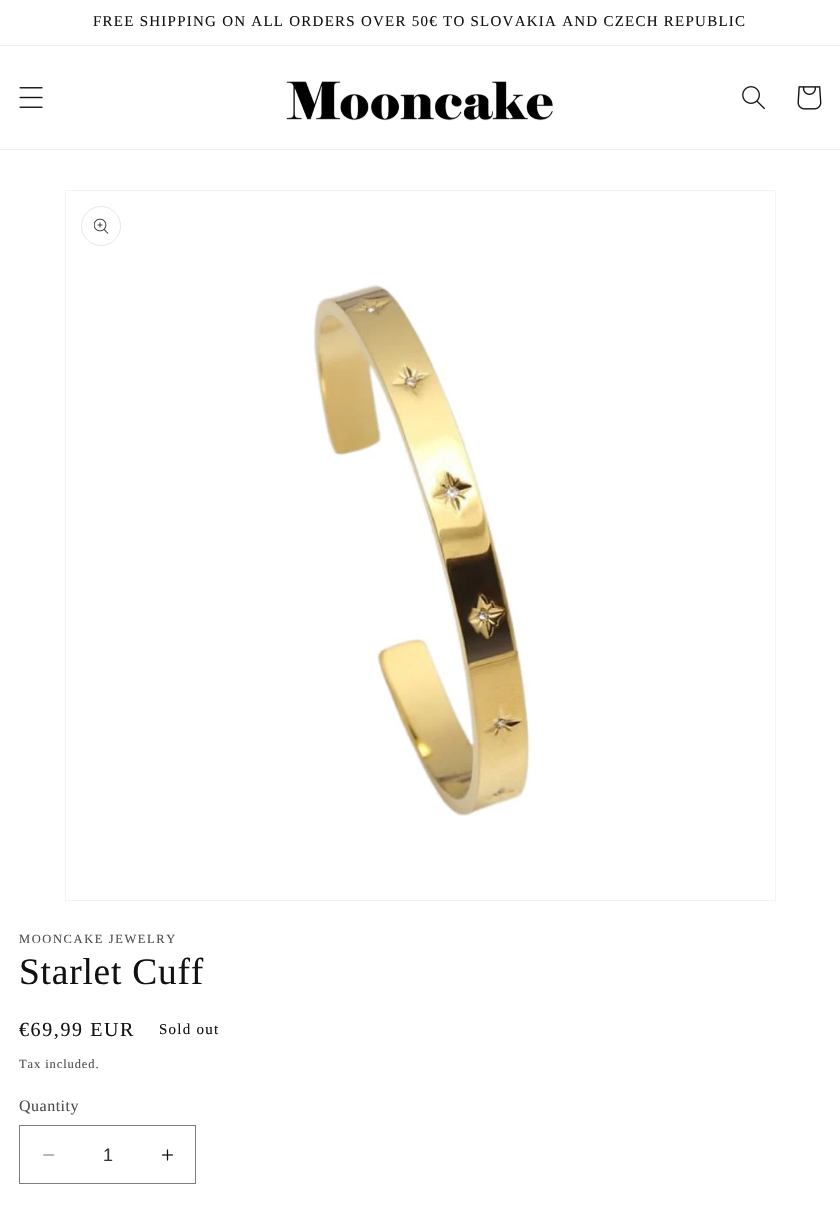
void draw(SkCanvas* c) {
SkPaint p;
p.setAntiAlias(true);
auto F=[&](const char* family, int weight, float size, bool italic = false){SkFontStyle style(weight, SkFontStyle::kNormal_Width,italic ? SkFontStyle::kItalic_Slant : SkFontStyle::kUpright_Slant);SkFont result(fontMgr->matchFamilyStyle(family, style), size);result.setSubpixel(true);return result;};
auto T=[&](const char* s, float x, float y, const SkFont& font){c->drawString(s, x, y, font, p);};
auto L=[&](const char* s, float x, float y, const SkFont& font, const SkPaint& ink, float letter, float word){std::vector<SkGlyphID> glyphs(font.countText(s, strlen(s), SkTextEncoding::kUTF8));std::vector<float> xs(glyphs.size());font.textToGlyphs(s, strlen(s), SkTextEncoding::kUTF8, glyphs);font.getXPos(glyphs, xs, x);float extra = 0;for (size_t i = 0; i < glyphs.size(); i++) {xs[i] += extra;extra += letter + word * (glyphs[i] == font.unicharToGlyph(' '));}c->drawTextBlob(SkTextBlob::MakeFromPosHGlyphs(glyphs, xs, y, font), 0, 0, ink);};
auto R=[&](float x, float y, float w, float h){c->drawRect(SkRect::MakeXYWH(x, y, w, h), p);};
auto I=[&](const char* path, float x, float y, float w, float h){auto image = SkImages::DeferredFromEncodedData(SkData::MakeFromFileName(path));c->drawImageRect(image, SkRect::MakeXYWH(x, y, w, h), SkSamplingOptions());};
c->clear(0xffffffff);
p.setColor(0xffececec);
R(0,45,840,1);
auto f1 = F("Liberation Serif",400,15);
p.setColor(0xff121212);
L("FREE SHIPPING ON ALL ORDERS OVER 50€ TO SLOVAKIA AND CZECH REPUBLIC",93,26,f1,p,1.25,0);
p.setColor(0xffececec);
R(0,149,840,1);
I("1.png",19,87,24,21);
I("2.png",286,81,267,40);
I("3.png",742,86,23,24);
I("4.png",797,86,25,24);
p.setStroke(true);
p.setStrokeWidth(1);
p.setColor(0xfff3f3f3);
c->drawRect(SkRect::MakeXYWH(65.5,190.5,710,710),p);
p.setColor(0xffe7e7e7);
c->drawCircle(101,226,19.5,p);
I("5.png",94,218,15,16);
I("6.png",313,284,218,532);
auto f2 = F("Liberation Serif",400,12.5);
p.setStroke(false);
p.setColor(0xff4d4d4d);
L("MOONCAKE JEWELRY",19,943,f2,p,1.6,0);
auto f3 = F("Liberation Serif",400,37.5);
p.setColor(0xff121212);
L("Starlet Cuff",19,984,f3,p,.75,0);
auto f4 = F("Liberation Serif",400,20);
L("€69,99 EUR",19,1036,f4,p,1.6,0);
L("Sold out",159,1034,f1,p,1.25,0);
p.setColor(0xff4d4d4d);
L("Tax included.",19,1068,f2,p,.9,0);
auto f5 = F("Liberation Serif",400,16);
L("Quantity",19,1111,f5,p,.5,0);
I("7.png",43,1154,12,2);
I("8.png",162,1149,12,12);
p.setStroke(true);
p.setColor(0xff7d7d7d);
c->drawRect(SkRect::MakeXYWH(19.5,1125.5,176,58),p);
auto f6 = F("Liberation Sans",400,18);
p.setStroke(false);
p.setColor(0xff363636);
T("1",103,1161,f6);
}
